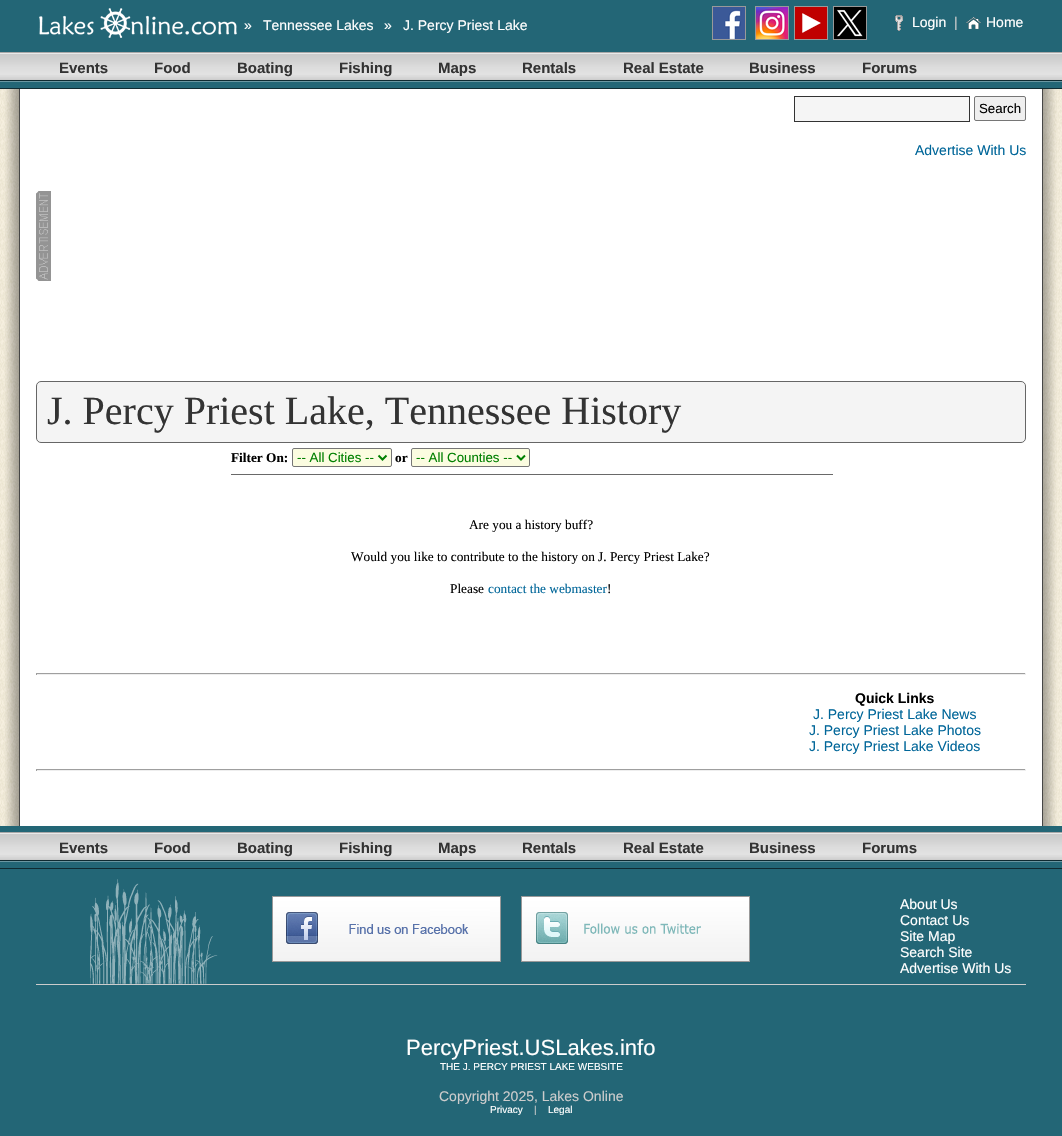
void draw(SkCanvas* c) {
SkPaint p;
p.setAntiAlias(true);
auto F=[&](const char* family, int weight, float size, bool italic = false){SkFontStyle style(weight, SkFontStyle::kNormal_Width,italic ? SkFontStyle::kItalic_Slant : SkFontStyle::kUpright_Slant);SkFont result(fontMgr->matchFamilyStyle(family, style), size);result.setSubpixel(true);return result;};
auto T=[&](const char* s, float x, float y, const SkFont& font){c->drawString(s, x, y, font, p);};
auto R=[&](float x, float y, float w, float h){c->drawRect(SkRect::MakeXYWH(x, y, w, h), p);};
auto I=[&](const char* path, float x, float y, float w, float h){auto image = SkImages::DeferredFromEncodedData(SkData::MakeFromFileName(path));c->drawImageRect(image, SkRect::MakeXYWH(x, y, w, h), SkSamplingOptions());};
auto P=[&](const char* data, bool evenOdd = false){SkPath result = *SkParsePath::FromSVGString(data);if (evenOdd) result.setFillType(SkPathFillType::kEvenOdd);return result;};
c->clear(0xffffffff);
I("1.png",0,89,1062,737);
p.setColor(0xff236676);
R(0,0,1062,89);
I("2.png",39,8,198,30);
auto f1 = F("Liberation Sans",400,14);
p.setColor(0xffffffff);
T("»",244,30,f1);
T("Tennessee Lakes",263,30,f1);
T("»",384,30,f1);
T("J. Percy Priest Lake",403,30,f1);
p.setStroke(true);
p.setStrokeWidth(1);
p.setColor(0xff999999);
c->drawRect(SkRect::MakeXYWH(712.5,6.5,33,33),p);
c->drawRect(SkRect::MakeXYWH(755.5,6.5,33,33),p);
c->drawRect(SkRect::MakeXYWH(794.5,6.5,33,33),p);
c->drawRect(SkRect::MakeXYWH(833.5,6.5,33,33),p);
I("3.png",713,7,32,32);
I("4.png",756,7,32,32);
I("5.png",795,7,32,32);
I("6.png",834,7,32,32);
I("7.png",895,15,8,16);
p.setStroke(false);
p.setColor(0xffffffff);
T("Login",912,27,f1);
p.setColor(0xffcccccc);
T("|",954,27,f1);
I("8.png",966,17,15,12);
p.setColor(0xffffffff);
T("Home",986,27,f1);
I("9.png",0,52,1062,37);
auto f2 = F("Liberation Sans",700,15);
p.setColor(0xff333333);
T("Events",59,73,f2);
T("Food",154,73,f2);
T("Boating",237,73,f2);
T("Fishing",339,73,f2);
T("Maps",438,73,f2);
T("Rentals",522,73,f2);
T("Real Estate",623,73,f2);
T("Business",749,73,f2);
T("Forums",862,73,f2);
p.setColor(0xfff5f5f5);
c->drawRect(SkRect::MakeXYWH(794.5,96.5,175,25),p);
p.setStroke(true);
p.setColor(0xff333333);
c->drawRect(SkRect::MakeXYWH(794.5,96.5,175,25),p);
p.setStroke(false);
p.setColor(0xffefefef);
c->drawRoundRect(SkRect::MakeXYWH(974.5,96.5,51,24),1.5,1.5,p);
p.setStroke(true);
p.setColor(0xff767676);
c->drawRoundRect(SkRect::MakeXYWH(974.5,96.5,51,24),1.5,1.5,p);
auto f3 = F("Liberation Sans",400,13.3);
p.setStroke(false);
p.setColor(0xff000000);
T("Search",979,113,f3);
p.setColor(0xff006699);
T("Advertise With Us",915,155,f1);
I("10.png",36,191,15,90);
p.setColor(0xfff4f4f4);
c->drawRoundRect(SkRect::MakeXYWH(36.5,381.5,989,61),4.5,4.5,p);
p.setStroke(true);
p.setColor(0xff666666);
c->drawRoundRect(SkRect::MakeXYWH(36.5,381.5,989,61),4.5,4.5,p);
auto f4 = F("Liberation Serif",400,40);
p.setStroke(false);
p.setColor(0xff333333);
T("J. Percy Priest Lake, Tennessee History",47,424,f4);
auto f5 = F("Liberation Serif",700,13.3);
p.setColor(0xff000000);
T("Filter On:",231,462,f5);
p.setColor(0xfffbfce0);
c->drawRoundRect(SkRect::MakeXYWH(292.5,448.5,99,18),1.5,1.5,p);
p.setStroke(true);
p.setColor(0xff767676);
c->drawRoundRect(SkRect::MakeXYWH(292.5,448.5,99,18),1.5,1.5,p);
p.setStrokeWidth(2);
p.setColor(0xff008000);
c->drawPath(P("M378.5 455.5l4 4l4-4"),p);
p.setStroke(false);
T("-- All Cities --",297,462,f3);
p.setColor(0xff000000);
T("or",395,462,f5);
p.setColor(0xfffbfce0);
c->drawRoundRect(SkRect::MakeXYWH(411.5,448.5,118,18),1.5,1.5,p);
p.setStroke(true);
p.setStrokeWidth(1);
p.setColor(0xff767676);
c->drawRoundRect(SkRect::MakeXYWH(411.5,448.5,118,18),1.5,1.5,p);
p.setStrokeWidth(2);
p.setColor(0xff008000);
c->drawPath(P("M517 455.5l4 4l4-4"),p);
p.setStroke(false);
T("-- All Counties --",416,462,f3);
p.setColor(0xff696969);
R(231,474,602,1);
auto f6 = F("Liberation Serif",400,13.3);
p.setColor(0xff000000);
T("Are you a history buff?",469,529,f6);
T("Would you like to contribute to the history on J. Percy Priest Lake?",351,561,f6);
T("Please",450,593,f6);
p.setColor(0xff006699);
T("contact the webmaster",488,593,f6);
p.setColor(0xff000000);
T("!",607,593,f6);
p.setColor(0xff9f9f9f);
R(36,673,990,1);
p.setColor(0xffeeeeee);
R(1025,673,1,2);
R(36,674,990,1);
p.setColor(0xff9f9f9f);
R(36,673,1,2);
auto f7 = F("Liberation Sans",700,14);
p.setColor(0xff000000);
T("Quick Links",855,703,f7);
p.setColor(0xff006699);
T("J. Percy Priest Lake News",813,719,f1);
T("J. Percy Priest Lake Photos",809,735,f1);
T("J. Percy Priest Lake Videos",809,751,f1);
p.setColor(0xff9f9f9f);
R(36,769,990,1);
p.setColor(0xffeeeeee);
R(1025,769,1,2);
R(36,770,990,1);
p.setColor(0xff9f9f9f);
R(36,769,1,2);
p.setColor(0xff236676);
R(0,826,1062,310);
I("9.png",0,832,1062,37);
p.setColor(0xff333333);
T("Events",59,853,f2);
T("Food",154,853,f2);
T("Boating",237,853,f2);
T("Fishing",339,853,f2);
T("Maps",438,853,f2);
T("Rentals",522,853,f2);
T("Real Estate",623,853,f2);
T("Business",749,853,f2);
T("Forums",862,853,f2);
p.setColor(0xffcccccc);
R(36,984,990,1);
I("11.png",90,879,128,105);
I("12.png",272,896,229,66);
I("13.png",521,896,229,66);
p.setColor(0xffffffff);
T("About Us",900,909,f1);
T("Contact Us",900,925,f1);
T("Site Map",900,941,f1);
T("Search Site",900,957,f1);
T("Advertise With Us",900,973,f1);
auto f8 = F("Liberation Sans",400,22);
T("PercyPriest.USLakes.info",406,1055,f8);
auto f9 = F("Liberation Sans",400,10);
T("THE J. PERCY PRIEST LAKE WEBSITE",440,1070,f9);
p.setColor(0xffcccccc);
T("Copyright 2025, Lakes Online",439,1101,f1);
p.setColor(0xffffffff);
T("Privacy",490,1113,f9);
p.setColor(0xffcccccc);
T("|",534,1113,f9);
p.setColor(0xffffffff);
T("Legal",548,1113,f9);
}
